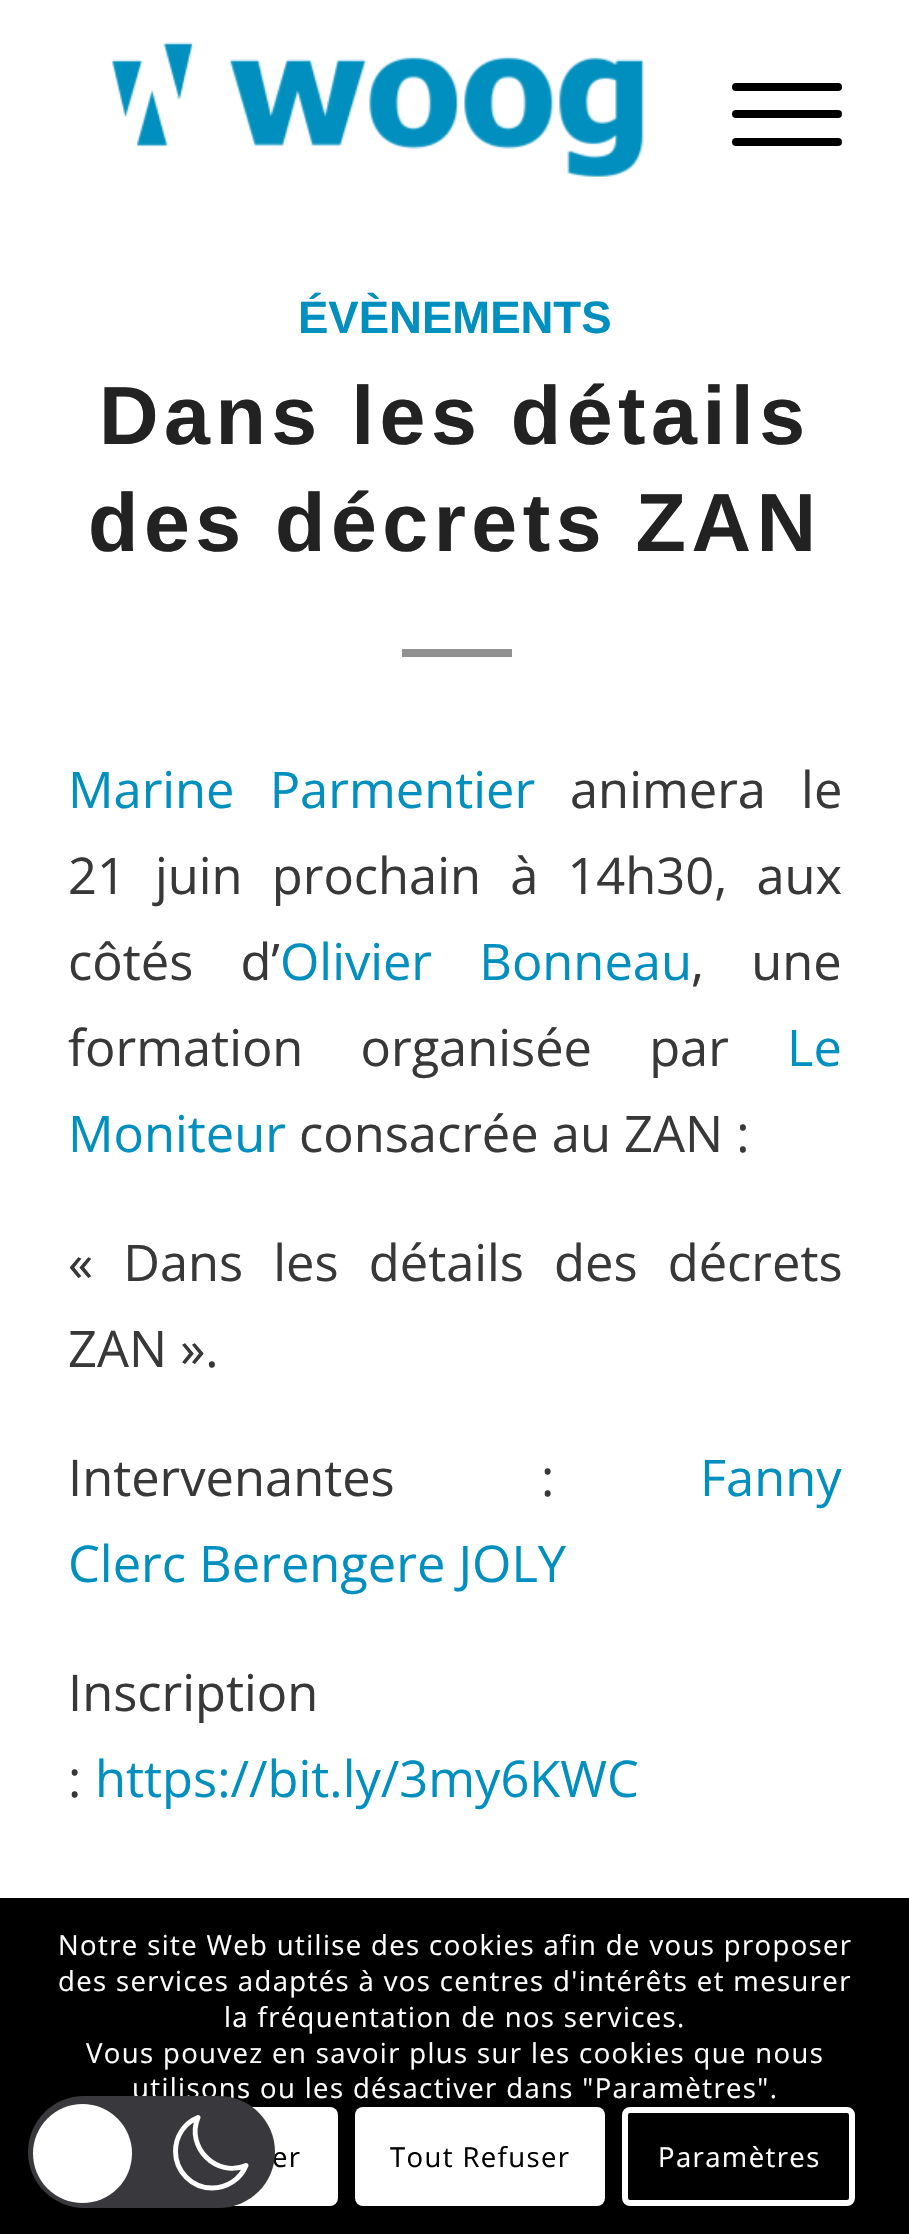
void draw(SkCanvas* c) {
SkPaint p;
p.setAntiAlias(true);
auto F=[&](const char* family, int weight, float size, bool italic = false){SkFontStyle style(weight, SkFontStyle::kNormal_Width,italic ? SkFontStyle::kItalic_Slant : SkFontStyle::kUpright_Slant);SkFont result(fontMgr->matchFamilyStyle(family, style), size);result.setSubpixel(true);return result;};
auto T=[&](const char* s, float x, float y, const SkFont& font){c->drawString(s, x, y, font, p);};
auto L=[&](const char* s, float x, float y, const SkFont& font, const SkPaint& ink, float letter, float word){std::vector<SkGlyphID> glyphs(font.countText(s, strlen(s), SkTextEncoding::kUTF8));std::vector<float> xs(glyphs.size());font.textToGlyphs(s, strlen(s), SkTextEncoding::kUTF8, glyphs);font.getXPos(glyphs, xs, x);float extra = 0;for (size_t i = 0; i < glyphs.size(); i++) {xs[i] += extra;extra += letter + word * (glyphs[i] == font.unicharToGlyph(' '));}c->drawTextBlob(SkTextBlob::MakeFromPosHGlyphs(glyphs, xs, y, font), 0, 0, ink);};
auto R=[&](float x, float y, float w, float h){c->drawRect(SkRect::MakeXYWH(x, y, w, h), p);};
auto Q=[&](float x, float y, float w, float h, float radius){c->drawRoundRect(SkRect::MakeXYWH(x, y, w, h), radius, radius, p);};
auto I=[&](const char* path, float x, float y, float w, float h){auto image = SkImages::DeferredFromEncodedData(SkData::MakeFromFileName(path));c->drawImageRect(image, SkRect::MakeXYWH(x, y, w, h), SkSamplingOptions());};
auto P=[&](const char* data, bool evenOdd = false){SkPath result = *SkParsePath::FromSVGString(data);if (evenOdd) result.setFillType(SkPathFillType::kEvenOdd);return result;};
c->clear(0xffffffff);
I("1.png",112,42,532,135);
p.setColor(0xff000000);
Q(732,110,110,8,4);
Q(732,83,110,8,4);
Q(732,138,110,8,4);
auto f1 = F("Liberation Sans",700,45.5);
p.setColor(0xff008fbe);
T("ÉVÈNEMENTS",298,333,f1);
auto f2 = F("Liberation Sans",700,82.5);
p.setColor(0xff222222);
L("Dans les détails",99,444,f2,p,5.5,0);
L("des décrets ZAN",88,551,f2,p,5.5,0);
p.setColor(0xff919191);
R(402,649,110,8);
auto f3 = F("Open Sans",400,50.6);
p.setColor(0xff008fbe);
L("Marine Parmentier",68,808,f3,p,0,22);
p.setColor(0xff383838);
L("animera le",570,808,f3,p,0,22);
L("21 juin prochain à 14h30, aux",68,894,f3,p,0,16);
L("côtés d’",68,980,f3,p,0,34);
p.setColor(0xff008fbe);
L("Olivier Bonneau",280,980,f3,p,0,34);
p.setColor(0xff383838);
L(", une",691,980,f3,p,0,34);
L("formation organisée par",68,1066,f3,p,0,44);
p.setColor(0xff008fbe);
T("Le",787,1066,f3);
T("Moniteur",68,1152,f3);
p.setColor(0xff383838);
T("consacrée au ZAN :",299,1152,f3);
L("« Dans les détails des décrets",68,1281,f3,p,0,17);
T("ZAN ».",68,1367,f3);
T("Intervenantes",68,1496,f3);
T(":",541,1496,f3);
p.setColor(0xff008fbe);
T("Fanny",700,1496,f3);
T("Clerc Berengere JOLY",68,1582,f3);
p.setColor(0xff383838);
T("Inscription",68,1711,f3);
T(":",68,1797,f3);
p.setColor(0xff008fbe);
T("https://bit.ly/3my6KWC",95,1797,f3);
p.setColor(0xff000000);
R(0,1898,909,336);
auto f4 = F("Open Sans",400,27.5);
p.setColor(0xffffffff);
L("Notre site Web utilise des cookies afin de vous proposer",58,1955,f4,p,1.38,0);
L("des services adaptés à vos centres d'intérêts et mesurer",58,1991,f4,p,1.38,0);
L("la fréquentation de nos services.",224,2027,f4,p,1.38,0);
L("Vous pouvez en savoir plus sur les cookies que nous",86,2063,f4,p,1.38,0);
L("utilisons ou les désactiver dans \"Paramètres\".",132,2098,f4,p,1.38,0);
Q(72,2107,266,99,8);
p.setColor(0xff000000);
L("er",272,2167,f4,p,1.38,0);
p.setColor(0xffffffff);
Q(355,2107,250,99,8);
p.setColor(0xff000000);
L("Tout Refuser",390,2167,f4,p,1.38,0);
p.setStroke(true);
p.setStrokeWidth(6);
p.setColor(0xffffffff);
c->drawRoundRect(SkRect::MakeXYWH(625,2110,227,93),5,5,p);
p.setStroke(false);
L("Paramètres",658,2167,f4,p,1.38,0);
p.setColor(0xff39393d);
Q(28,2096,247,112,56);
p.setColor(0xffffffff);
c->drawCircle(82.5,2153.5,49.5,p);
p.setStroke(true);
p.setStrokeWidth(4.9);
p.setStrokeCap(SkPaint::kRound_Cap);
p.setStrokeJoin(SkPaint::kRound_Join);
c->drawPath(P("M246 2165.5c-29.5 12.5-60.5-18.5-48-48c-13.5 5.5-22.5 18.5-22.5 34c0 20 16.5 36.5 36.5 36.5c15.5 0 28.5-9 34-22.5z"),p);
}
